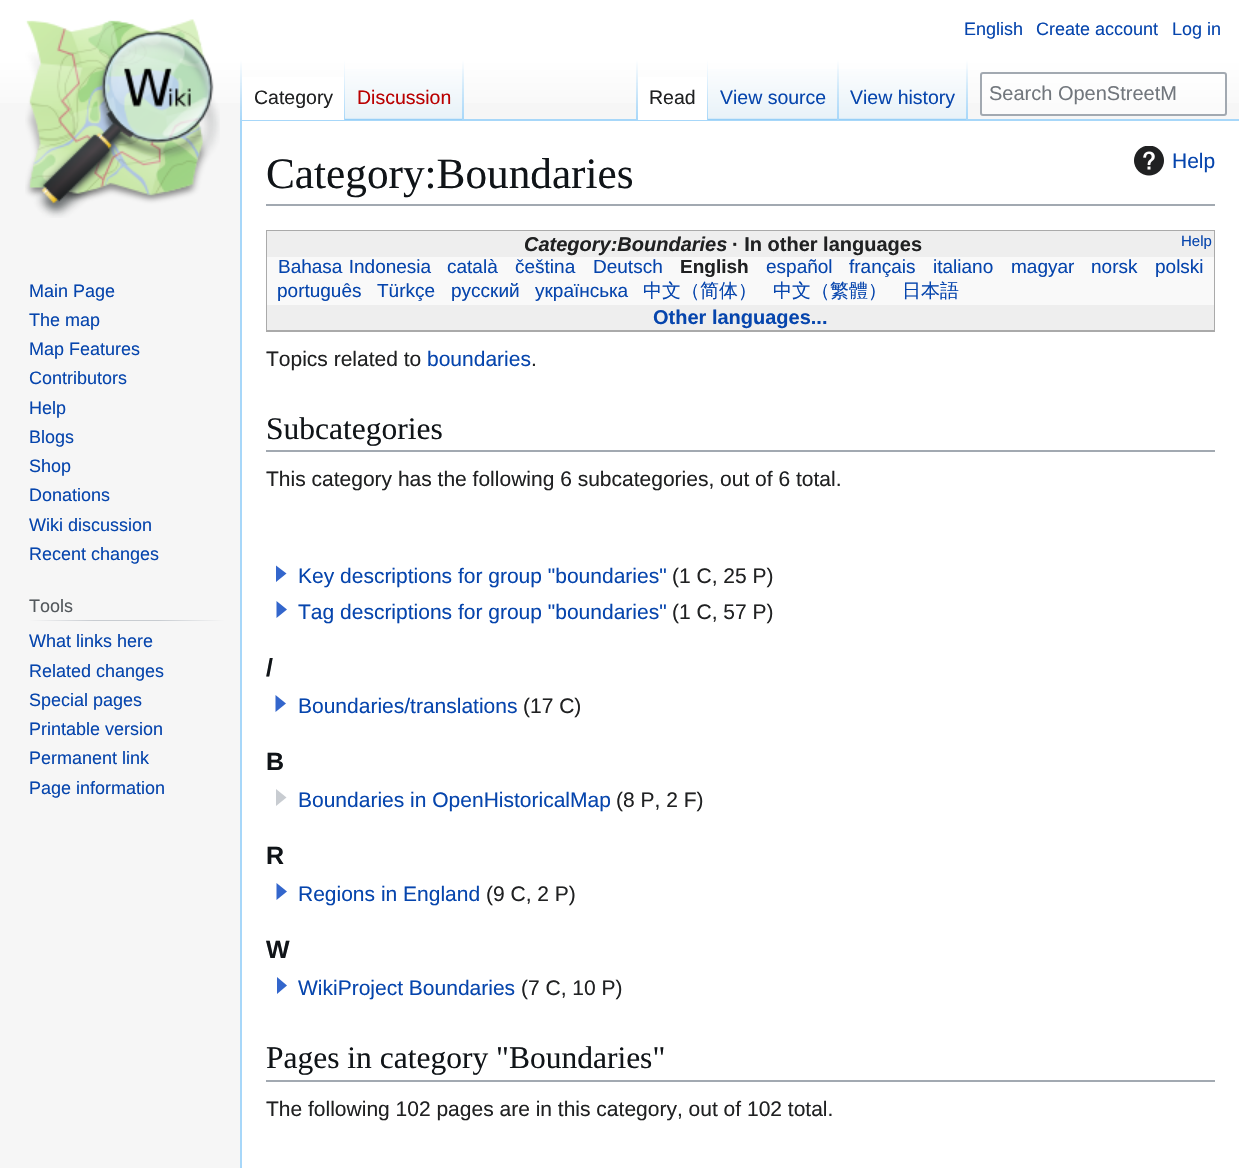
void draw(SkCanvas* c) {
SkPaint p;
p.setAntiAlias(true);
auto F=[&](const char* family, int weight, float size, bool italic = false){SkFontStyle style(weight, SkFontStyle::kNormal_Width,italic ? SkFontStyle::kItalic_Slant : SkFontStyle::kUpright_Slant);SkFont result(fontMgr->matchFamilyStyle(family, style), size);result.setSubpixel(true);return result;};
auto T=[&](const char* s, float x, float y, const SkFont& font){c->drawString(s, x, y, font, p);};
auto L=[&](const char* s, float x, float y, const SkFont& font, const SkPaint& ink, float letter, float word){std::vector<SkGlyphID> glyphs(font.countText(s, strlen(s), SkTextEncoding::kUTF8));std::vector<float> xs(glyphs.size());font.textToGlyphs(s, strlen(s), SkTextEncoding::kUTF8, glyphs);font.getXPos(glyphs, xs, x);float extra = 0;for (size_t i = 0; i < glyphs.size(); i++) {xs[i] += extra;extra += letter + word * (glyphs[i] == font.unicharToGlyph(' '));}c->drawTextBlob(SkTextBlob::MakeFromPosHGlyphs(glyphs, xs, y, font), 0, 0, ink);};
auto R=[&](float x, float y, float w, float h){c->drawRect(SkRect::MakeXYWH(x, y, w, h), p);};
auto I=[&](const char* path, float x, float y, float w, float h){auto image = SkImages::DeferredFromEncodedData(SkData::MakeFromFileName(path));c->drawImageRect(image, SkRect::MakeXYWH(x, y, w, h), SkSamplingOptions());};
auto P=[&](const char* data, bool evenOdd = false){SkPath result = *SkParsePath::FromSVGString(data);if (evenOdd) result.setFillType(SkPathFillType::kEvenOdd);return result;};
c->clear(0xfff6f6f6);
{
const SkColor colors[] = {0xffffffff,0xfff6f6f6};
const float stops[] = {.5,1};
const SkPoint ends[] = {{620,0}, {620,120}};
p.setShader(SkGradientShader::MakeLinear(ends, colors, stops, 2, SkTileMode::kClamp));
p.setAlpha(255);
}
R(0,0,1239,103);
auto f1 = F("Liberation Sans",400,18);
p.setShader(nullptr);
p.setColor(0xff0645ad);
T("English",964,35,f1);
T("Create account",1036,35,f1);
T("Log in",1172,35,f1);
p.setColor(0xffa7d7f9);
R(240,119,999,2);
R(240,119,2,1049);
{
const SkColor colors[] = {0x00a7d7f9,0xffa7d7f9};
const float stops[] = {0,1};
const SkPoint ends[] = {{241,60}, {241,120}};
p.setShader(SkGradientShader::MakeLinear(ends, colors, stops, 2, SkTileMode::kClamp));
p.setAlpha(255);
}
R(240,60,2,60);
p.setShader(nullptr);
p.setColor(0xffffffff);
R(242,77,102,43);
{
const SkColor colors[] = {0xffffffff,0xffa7d7f9};
const float stops[] = {0,1};
const SkPoint ends[] = {{344,60}, {344,120}};
p.setShader(SkGradientShader::MakeLinear(ends, colors, stops, 2, SkTileMode::kClamp));
p.setAlpha(255);
}
R(344,60,1,60);
auto f2 = F("Liberation Sans",400,19.5);
p.setShader(nullptr);
p.setColor(0xff202122);
T("Category",254,104,f2);
{
const SkColor colors[] = {0xff77c1f6,0xffe8f2f8,0xffffffff};
const float stops[] = {0,.03,1};
const SkPoint ends[] = {{404,120}, {404,60}};
p.setShader(SkGradientShader::MakeLinear(ends, colors, stops, 3, SkTileMode::kClamp));
p.setAlpha(255);
}
R(345,69,119,51);
{
const SkColor colors[] = {0x00a7d7f9,0xffa7d7f9};
const float stops[] = {0,1};
const SkPoint ends[] = {{463,60}, {463,120}};
p.setShader(SkGradientShader::MakeLinear(ends, colors, stops, 2, SkTileMode::kClamp));
p.setAlpha(255);
}
R(462,60,2,60);
p.setShader(nullptr);
p.setColor(0xffba0000);
T("Discussion",357,104,f2);
{
const SkColor colors[] = {0x00a7d7f9,0xffa7d7f9};
const float stops[] = {0,1};
const SkPoint ends[] = {{637,60}, {637,120}};
p.setShader(SkGradientShader::MakeLinear(ends, colors, stops, 2, SkTileMode::kClamp));
p.setAlpha(255);
}
R(636,60,2,60);
p.setShader(nullptr);
p.setColor(0xffffffff);
R(638,77,69,43);
{
const SkColor colors[] = {0xffffffff,0xffa7d7f9};
const float stops[] = {0,1};
const SkPoint ends[] = {{707,60}, {707,120}};
p.setShader(SkGradientShader::MakeLinear(ends, colors, stops, 2, SkTileMode::kClamp));
p.setAlpha(255);
}
R(707,60,1,60);
p.setShader(nullptr);
p.setColor(0xff202122);
T("Read",649,104,f2);
{
const SkColor colors[] = {0xff77c1f6,0xffe8f2f8,0xffffffff};
const float stops[] = {0,.03,1};
const SkPoint ends[] = {{773,120}, {773,60}};
p.setShader(SkGradientShader::MakeLinear(ends, colors, stops, 3, SkTileMode::kClamp));
p.setAlpha(255);
}
R(708,69,131,51);
{
const SkColor colors[] = {0x00a7d7f9,0xffa7d7f9};
const float stops[] = {0,1};
const SkPoint ends[] = {{838,60}, {838,120}};
p.setShader(SkGradientShader::MakeLinear(ends, colors, stops, 2, SkTileMode::kClamp));
p.setAlpha(255);
}
R(837,60,2,60);
p.setShader(nullptr);
p.setColor(0xff0645ad);
T("View source",720,104,f2);
{
const SkColor colors[] = {0xff77c1f6,0xffe8f2f8,0xffffffff};
const float stops[] = {0,.03,1};
const SkPoint ends[] = {{903,120}, {903,60}};
p.setShader(SkGradientShader::MakeLinear(ends, colors, stops, 3, SkTileMode::kClamp));
p.setAlpha(255);
}
R(839,69,129,51);
{
const SkColor colors[] = {0x00a7d7f9,0xffa7d7f9};
const float stops[] = {0,1};
const SkPoint ends[] = {{967,60}, {967,120}};
p.setShader(SkGradientShader::MakeLinear(ends, colors, stops, 2, SkTileMode::kClamp));
p.setAlpha(255);
}
R(966,60,2,60);
p.setShader(nullptr);
p.setColor(0xff0645ad);
T("View history",850,104,f2);
p.setColor(0x80ffffff);
c->drawRoundRect(SkRect::MakeXYWH(981,73,245,42),2,2,p);
p.setStroke(true);
p.setStrokeWidth(2);
p.setColor(0xffa2a9b1);
c->drawRoundRect(SkRect::MakeXYWH(981,73,245,42),2,2,p);
auto f3 = F("Liberation Sans",400,20);
p.setStroke(false);
p.setColor(0xff72777d);
T("Search OpenStreetM",989,100,f3);
I("1.png",25,19,195,199);
p.setColor(0xff0645ad);
T("Main Page",29,297,f1);
T("The map",29,326,f1);
T("Map Features",29,355,f1);
T("Contributors",29,384,f1);
T("Help",29,414,f1);
T("Blogs",29,443,f1);
T("Shop",29,472,f1);
T("Donations",29,501,f1);
T("Wiki discussion",29,531,f1);
T("Recent changes",29,560,f1);
{
const SkColor colors[] = {0xfff6f6f6,0xffc8ccd1,0xffc8ccd1,0xfff6f6f6};
const float stops[] = {0,.33,.66,1};
const SkPoint ends[] = {{29,620}, {225,620}};
p.setShader(SkGradientShader::MakeLinear(ends, colors, stops, 4, SkTileMode::kClamp));
p.setAlpha(255);
}
R(29,620,196,1);
p.setShader(nullptr);
p.setColor(0xff54595d);
T("Tools",29,612,f1);
p.setColor(0xff0645ad);
T("What links here",29,647,f1);
T("Related changes",29,677,f1);
T("Special pages",29,706,f1);
T("Printable version",29,735,f1);
T("Permanent link",29,764,f1);
T("Page information",29,794,f1);
p.setColor(0xffffffff);
R(242,121,997,1047);
p.setColor(0xffa2a9b1);
R(266,204,949,2);
auto f4 = F("Liberation Serif",400,43.25);
p.setColor(0xff101418);
T("Category:Boundaries",266,188,f4);
I("2.png",1134,146,30,30);
auto f5 = F("Liberation Sans",400,21);
p.setColor(0xff0645ad);
T("Help",1172,168,f5);
p.setStroke(true);
p.setColor(0xffaaaaaa);
c->drawRect(SkRect::MakeXYWH(267,231,947,100),p);
p.setStroke(false);
p.setColor(0xffeeeeee);
R(267,231,947,26);
auto f6 = F("Liberation Sans",700,20,true);
p.setColor(0xff202122);
T("Category:Boundaries",524,251,f6);
auto f7 = F("Liberation Sans",700,20);
T("· In other languages",732,251,f7);
auto f8 = F("Liberation Sans",400,15);
p.setColor(0xff0645ad);
T("Help",1181,246,f8);
p.setColor(0xfff9f9f9);
R(267,257,947,48);
auto f9 = F("Liberation Sans",400,19);
p.setColor(0xff0645ad);
L("Bahasa Indonesia",278,273,f9,p,0,1);
T("català",447,273,f9);
T("čeština",515,273,f9);
T("Deutsch",593,273,f9);
auto f10 = F("Liberation Sans",700,19);
p.setColor(0xff202122);
T("English",680,273,f10);
p.setColor(0xff0645ad);
T("español",766,273,f9);
T("français",849,273,f9);
T("italiano",933,273,f9);
T("magyar",1011,273,f9);
T("norsk",1091,273,f9);
T("polski",1155,273,f9);
T("português",277,297,f9);
T("Türkçe",377,297,f9);
T("русский",451,297,f9);
T("українська",535,297,f9);
auto f11 = F("WenQuanYi Zen Hei",500,19);
T("中文（简体）",643,297,f11);
T("中文（繁體）",773,297,f11);
T("日本語",902,297,f11);
p.setColor(0xffeeeeee);
R(267,305,947,25);
p.setColor(0xff0645ad);
T("Other languages...",653,324,f7);
p.setColor(0xff202122);
T("Topics related to",266,366,f5);
p.setColor(0xff0645ad);
T("boundaries",427,366,f5);
p.setColor(0xff202122);
T(".",531,366,f5);
p.setColor(0xffa2a9b1);
R(266,450,949,2);
auto f12 = F("Liberation Serif",400,31.5);
p.setColor(0xff101418);
T("Subcategories",266,439,f12);
p.setColor(0xff202122);
T("This category has the following 6 subcategories, out of 6 total.",266,486,f5);
p.setColor(0xff3366cc);
c->drawPath(P("M286.5 573.5l-10.5 8.5v-16.5zm.5 36l-10.5 8.5v-17z"),p);
p.setColor(0xff0645ad);
T("Key descriptions for group \"boundaries\"",298,583,f5);
p.setColor(0xff202122);
T("(1 C, 25 P)",672,583,f5);
p.setColor(0xff0645ad);
T("Tag descriptions for group \"boundaries\"",298,619,f5);
p.setColor(0xff202122);
T("(1 C, 57 P)",672,619,f5);
auto f13 = F("Liberation Sans",700,25);
p.setColor(0xff101418);
T("/",266,676,f13);
p.setColor(0xff3366cc);
c->drawPath(P("M286 703.5l-10.5 8.5v-17z"),p);
p.setColor(0xff0645ad);
T("Boundaries/translations",298,713,f5);
p.setColor(0xff202122);
T("(17 C)",523,713,f5);
p.setColor(0xff101418);
T("B",266,770,f13);
p.setColor(0xffc8ccd1);
c->drawPath(P("M286.5 797.5l-10.5 8.5v-17z"),p);
p.setColor(0xff0645ad);
T("Boundaries in OpenHistoricalMap",298,807,f5);
p.setColor(0xff202122);
T("(8 P, 2 F)",616,807,f5);
p.setColor(0xff101418);
T("R",266,864,f13);
p.setColor(0xff3366cc);
c->drawPath(P("M287 891.5l-10.5 8.5v-17z"),p);
p.setColor(0xff0645ad);
T("Regions in England",298,901,f5);
p.setColor(0xff202122);
T("(9 C, 2 P)",486,901,f5);
p.setColor(0xff101418);
T("W",266,958,f13);
p.setColor(0xff3366cc);
c->drawPath(P("M287 985.5l-10 8.5v-17z"),p);
p.setColor(0xff0645ad);
T("WikiProject Boundaries",298,995,f5);
p.setColor(0xff202122);
T("(7 C, 10 P)",521,995,f5);
p.setColor(0xffa2a9b1);
R(266,1080,949,2);
p.setColor(0xff101418);
T("Pages in category \"Boundaries\"",266,1068,f12);
p.setColor(0xff202122);
T("The following 102 pages are in this category, out of 102 total.",266,1116,f5);
}
